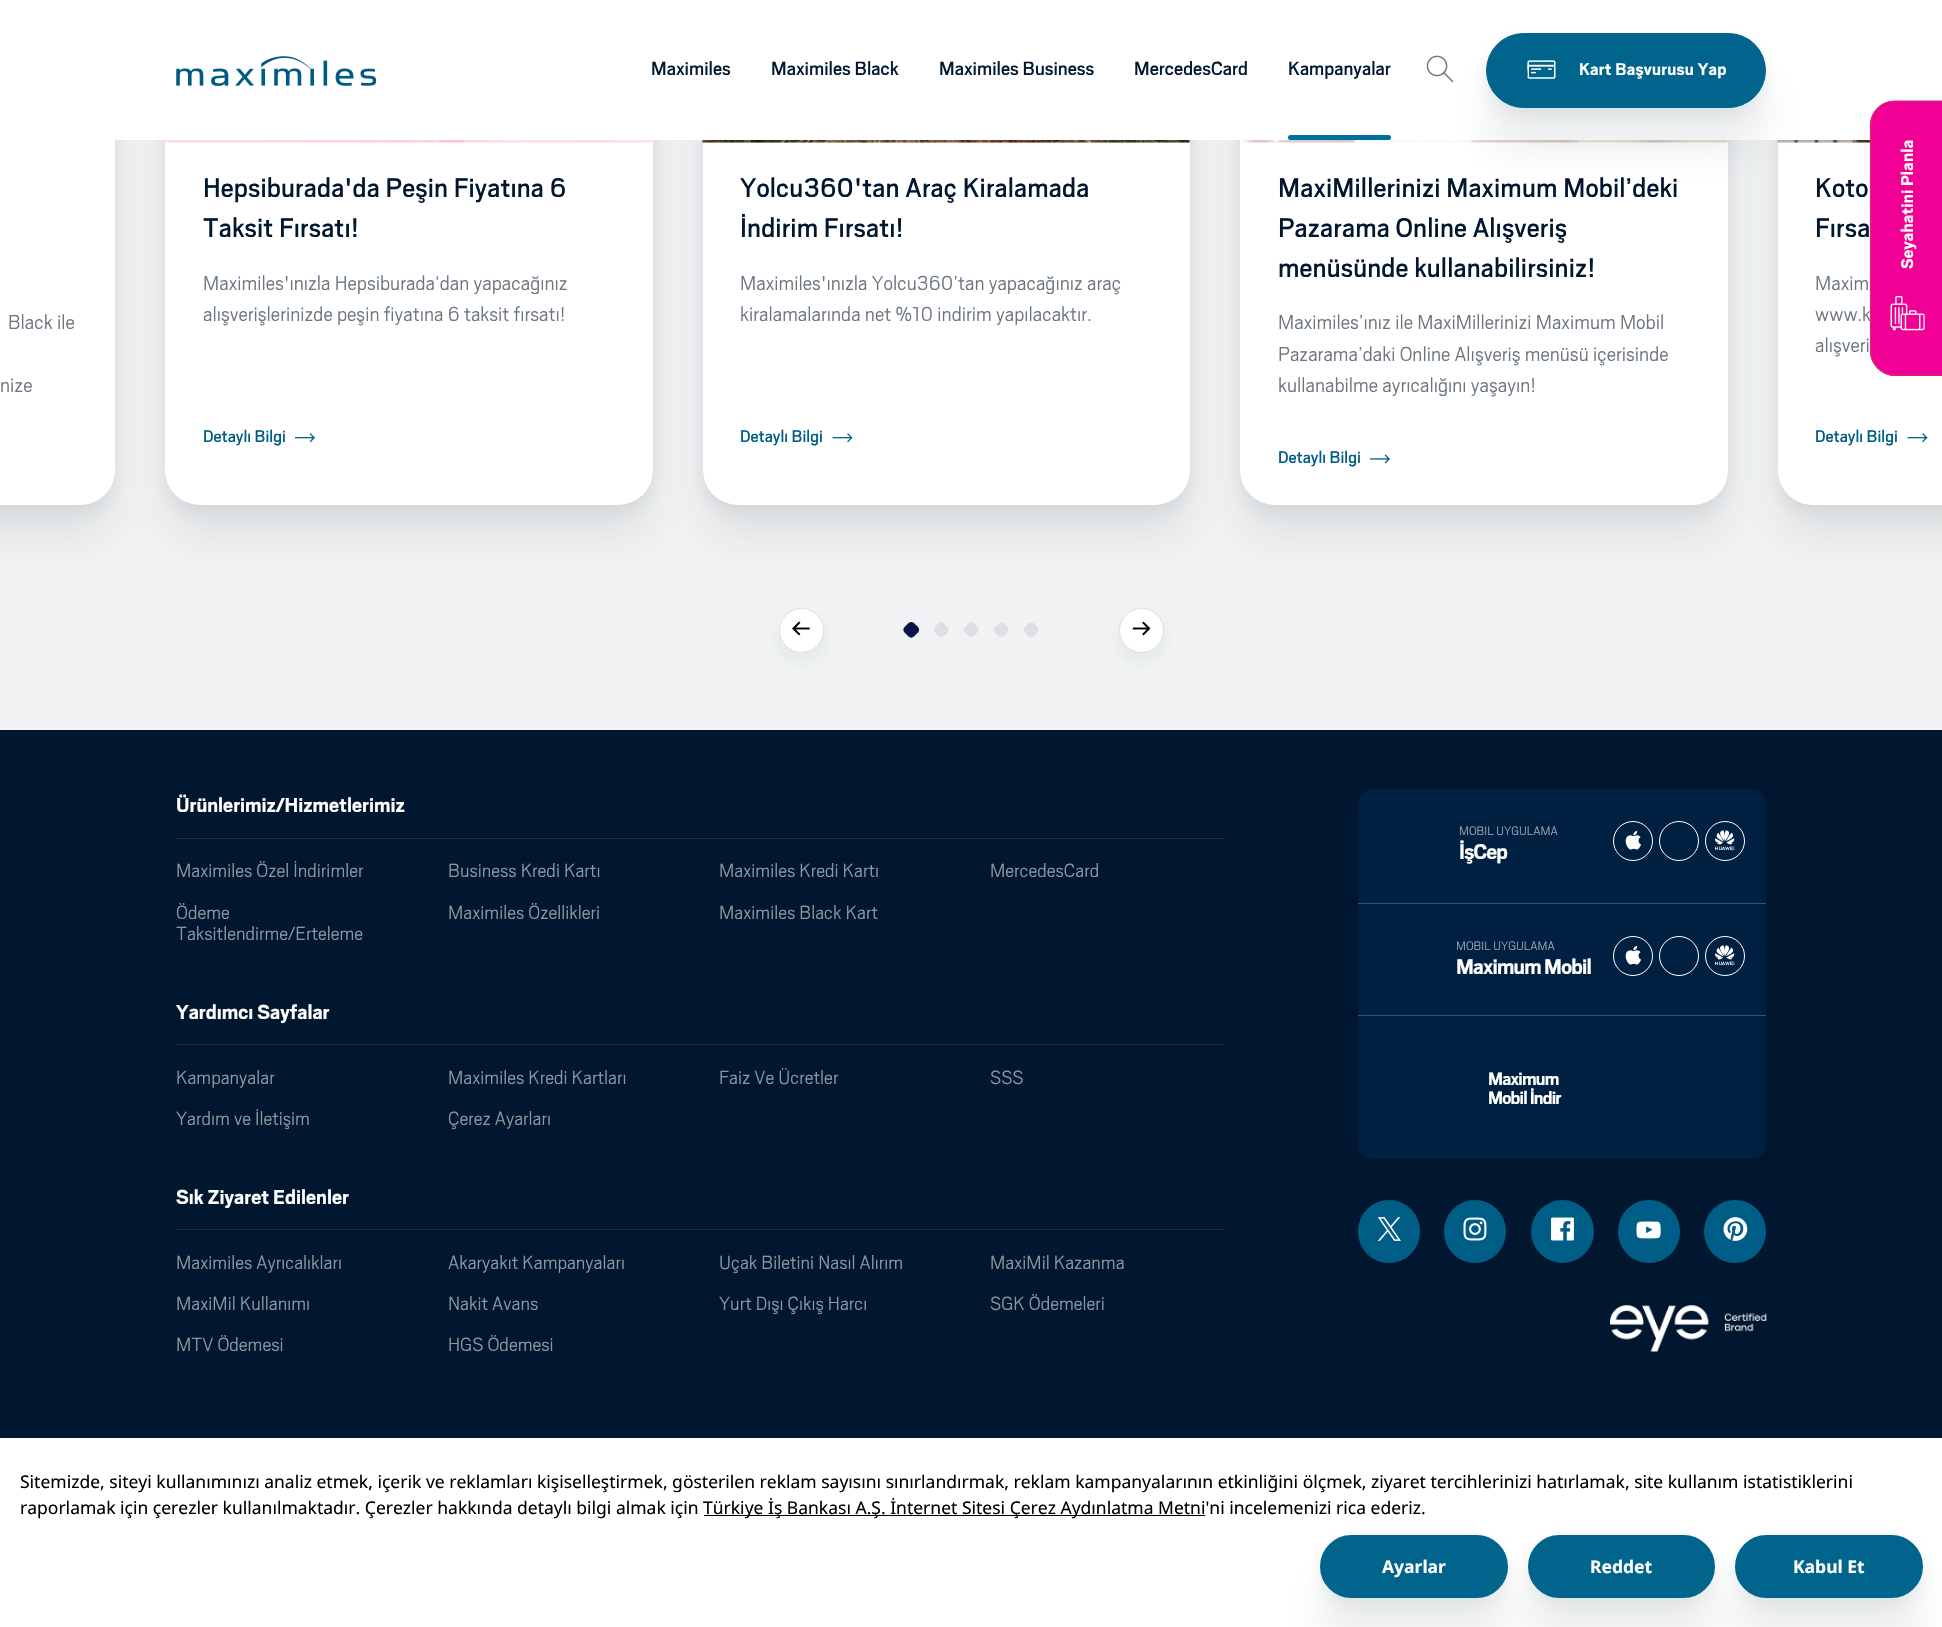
void draw(SkCanvas* c) {
SkPaint p;
p.setAntiAlias(true);
auto F=[&](const char* family, int weight, float size, bool italic = false){SkFontStyle style(weight, SkFontStyle::kNormal_Width,italic ? SkFontStyle::kItalic_Slant : SkFontStyle::kUpright_Slant);SkFont result(fontMgr->matchFamilyStyle(family, style), size);result.setSubpixel(true);return result;};
auto T=[&](const char* s, float x, float y, const SkFont& font){c->drawString(s, x, y, font, p);};
auto L=[&](const char* s, float x, float y, const SkFont& font, const SkPaint& ink, float letter, float word){std::vector<SkGlyphID> glyphs(font.countText(s, strlen(s), SkTextEncoding::kUTF8));std::vector<float> xs(glyphs.size());font.textToGlyphs(s, strlen(s), SkTextEncoding::kUTF8, glyphs);font.getXPos(glyphs, xs, x);float extra = 0;for (size_t i = 0; i < glyphs.size(); i++) {xs[i] += extra;extra += letter + word * (glyphs[i] == font.unicharToGlyph(' '));}c->drawTextBlob(SkTextBlob::MakeFromPosHGlyphs(glyphs, xs, y, font), 0, 0, ink);};
auto R=[&](float x, float y, float w, float h){c->drawRect(SkRect::MakeXYWH(x, y, w, h), p);};
auto Q=[&](float x, float y, float w, float h, float radius){c->drawRoundRect(SkRect::MakeXYWH(x, y, w, h), radius, radius, p);};
auto I=[&](const char* path, float x, float y, float w, float h){auto image = SkImages::DeferredFromEncodedData(SkData::MakeFromFileName(path));c->drawImageRect(image, SkRect::MakeXYWH(x, y, w, h), SkSamplingOptions());};
auto P=[&](const char* data, bool evenOdd = false){SkPath result = *SkParsePath::FromSVGString(data);if (evenOdd) result.setFillType(SkPathFillType::kEvenOdd);return result;};
c->clear(0xff00172f);
p.setColor(0xfff1f2f3);
R(0,140,1942,590);
p.setColor(0x1f6b7580);
p.setMaskFilter(SkMaskFilter::MakeBlur(kNormal_SkBlurStyle, 7.5));
c->drawRoundRect(SkRect::MakeXYWH(-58,-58,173,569),35,35,p);
p.setMaskFilter(nullptr);
p.setColor(0x246b7580);
p.setMaskFilter(SkMaskFilter::MakeBlur(kNormal_SkBlurStyle, 19));
c->drawRoundRect(SkRect::MakeXYWH(-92,-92,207,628),35,35,p);
p.setMaskFilter(nullptr);
p.setColor(0x1f6b7580);
p.setMaskFilter(SkMaskFilter::MakeBlur(kNormal_SkBlurStyle, 7.5));
c->drawRoundRect(SkRect::MakeXYWH(165,-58,488,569),35,35,p);
p.setMaskFilter(nullptr);
p.setColor(0xffffffff);
c->drawPath(P("M-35-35h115c19.5 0 35 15.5 35 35v470c0 19.5-15.5 35-35 35h-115z"),p);
p.setColor(0x246b7580);
p.setMaskFilter(SkMaskFilter::MakeBlur(kNormal_SkBlurStyle, 19));
c->drawRoundRect(SkRect::MakeXYWH(165,-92,488,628),35,35,p);
p.setMaskFilter(nullptr);
p.setColor(0xffffffff);
Q(165,-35,488,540,35);
p.setColor(0x1f6b7580);
p.setMaskFilter(SkMaskFilter::MakeBlur(kNormal_SkBlurStyle, 7.5));
c->drawRoundRect(SkRect::MakeXYWH(703,-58,487,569),35,35,p);
p.setMaskFilter(nullptr);
p.setColor(0x246b7580);
p.setMaskFilter(SkMaskFilter::MakeBlur(kNormal_SkBlurStyle, 19));
c->drawRoundRect(SkRect::MakeXYWH(703,-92,487,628),35,35,p);
p.setMaskFilter(nullptr);
p.setColor(0xffffffff);
Q(703,-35,487,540,35);
p.setColor(0x1f6b7580);
p.setMaskFilter(SkMaskFilter::MakeBlur(kNormal_SkBlurStyle, 7.5));
c->drawRoundRect(SkRect::MakeXYWH(1240,-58,488,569),35,35,p);
p.setMaskFilter(nullptr);
p.setColor(0x246b7580);
p.setMaskFilter(SkMaskFilter::MakeBlur(kNormal_SkBlurStyle, 19));
c->drawRoundRect(SkRect::MakeXYWH(1240,-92,488,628),35,35,p);
p.setMaskFilter(nullptr);
p.setColor(0xffffffff);
Q(1240,-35,488,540,35);
p.setColor(0x1f6b7580);
p.setMaskFilter(SkMaskFilter::MakeBlur(kNormal_SkBlurStyle, 7.5));
c->drawRoundRect(SkRect::MakeXYWH(1778,-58,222,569),35,35,p);
p.setMaskFilter(nullptr);
p.setColor(0x246b7580);
p.setMaskFilter(SkMaskFilter::MakeBlur(kNormal_SkBlurStyle, 19));
c->drawRoundRect(SkRect::MakeXYWH(1778,-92,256,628),35,35,p);
p.setMaskFilter(nullptr);
p.setColor(0xffffffff);
R(115,0,1663,140);
I("1.png",176,56,200,30);
auto f1 = F("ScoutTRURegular",400,21.25);
p.setColor(0xff00172f);
T("Maximiles",651,75,f1);
T("Maximiles Black",771,75,f1);
T("Maximiles Business",939,75,f1);
T("MercedesCard",1134,75,f1);
T("Kampanyalar",1288,75,f1);
p.setColor(0xff006e9e);
Q(1288,135,103,5,2.5);
I("2.png",1426,55,28,28);
p.setColor(0xffffffff);
c->drawPath(P("M1813-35h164v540h-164c-19.5 0-35-15.5-35-35v-470c0-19.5 15.5-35 35-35z"),p);
p.setColor(0x1f6b7580);
p.setMaskFilter(SkMaskFilter::MakeBlur(kNormal_SkBlurStyle, 7.5));
c->drawRoundRect(SkRect::MakeXYWH(1486,39,280,75),37.5,37.5,p);
p.setMaskFilter(nullptr);
I("10.png",1240,140,488,3);
I("12.png",1777,140,93,3);
p.setColor(0x246b7580);
p.setMaskFilter(SkMaskFilter::MakeBlur(kNormal_SkBlurStyle, 19));
c->drawRoundRect(SkRect::MakeXYWH(1486,74,280,75),37.5,37.5,p);
p.setMaskFilter(nullptr);
p.setColor(0xff00648c);
c->drawRoundRect(SkRect::MakeXYWH(1486.5,33.5,279,74),37,37,p);
p.setStroke(true);
p.setStrokeWidth(1);
c->drawRoundRect(SkRect::MakeXYWH(1486.5,33.5,279,74),37,37,p);
I("3.png",1527,60,29,19);
auto f2 = F("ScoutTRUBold",700,18.75);
p.setStroke(false);
p.setColor(0xffffffff);
L("Kart Başvurusu Yap",1579,75,f2,p,.25,0);
auto f3 = F("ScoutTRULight",300,22.5);
p.setColor(0xff6b7580);
T("www.k",1815,321,f3);
p.setColor(0xffdd2c6e);
c->drawPath(P("M1870 351v-225c0-14 11-25 25-25h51v275h-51c-14 0-25-12-25-25z"),p);
p.setColor(0xfff00095);
c->drawPath(P("M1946 374v2h-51c-3 0-6-1-9-2z"),p);
c->drawPath(P("M1870 351c0 10 7 19 16 23h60v-272h-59c-10 3-17 13-17 24z"),p);
c->drawPath(P("M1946 102h-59c2-1 5-1 8-1h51z"),p);
p.setStroke(true);
p.setStrokeWidth(1.2);
p.setColor(0xffdd2c6e);
c->drawPath(P("M1870.5 350.5v-225c0-13.5 11-24.5 24.5-24.5h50v274h-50c-13.5 0-24.5-11-24.5-24.5z"),p);
p.setStroke(false);
p.setColor(0xffffffff);
c->save();
c->rotate(-90,1913,269);
L("Seyahatini Planla",1913,269,f2,p,.25,0);
c->restore();
I("4.png",1890,296,35,35);
I("5.png",0,140,116,2);
p.setColor(0xff6b7580);
T("Black ile",8,329,f3);
T("nize",0,392,f3);
I("6.png",165,140,488,3);
auto f4 = F("ScoutTRURegular",400,30);
p.setColor(0xff00172f);
L("Hepsiburada'da Peşin Fiyatına 6",203,197,f4,p,.15,0);
L("Taksit Fırsatı!",203,237,f4,p,.15,0);
p.setColor(0xff6b7580);
T("Maximiles'ınızla Hepsiburada‘dan yapacağınız",203,290,f3);
T("alışverişlerinizde peşin fiyatına 6 taksit fırsatı!",203,321,f3);
auto f5 = F("ScoutTRURegular",400,18.75);
p.setColor(0xff005d86);
T("Detaylı Bilgi",203,442,f5);
I("7.png",295,433,20,10);
I("8.png",702,140,489,3);
p.setColor(0xff00172f);
L("Yolcu360'tan Araç Kiralamada",740,197,f4,p,.15,0);
L("İndirim Fırsatı!",740,237,f4,p,.15,0);
p.setColor(0xff6b7580);
T("Maximiles'ınızla Yolcu360’tan yapacağınız araç",740,290,f3);
T("kiralamalarında net %10 indirim yapılacaktır.",740,321,f3);
p.setColor(0xff005d86);
T("Detaylı Bilgi",740,442,f5);
I("9.png",832,433,21,10);
p.setColor(0xff00172f);
L("MaxiMillerinizi Maximum Mobil’deki",1278,197,f4,p,.15,0);
L("Pazarama Online Alışveriş",1278,237,f4,p,.15,0);
L("menüsünde kullanabilirsiniz!",1278,277,f4,p,.15,0);
p.setColor(0xff6b7580);
T("Maximiles’ınız ile MaxiMillerinizi Maximum Mobil",1278,329,f3);
T("Pazarama’daki Online Alışveriş menüsü içerisinde",1278,361,f3);
T("kullanabilme ayrıcalığını yaşayın!",1278,392,f3);
p.setColor(0xff005d86);
T("Detaylı Bilgi",1278,463,f5);
I("11.png",1370,454,20,10);
p.setColor(0xff00172f);
L("Koto",1815,197,f4,p,.15,0);
L("Fırsa",1815,237,f4,p,.15,0);
p.setColor(0xff6b7580);
T("Maxim",1815,290,f3);
T("alışveri",1815,352,f3);
p.setColor(0xff005d86);
T("Detaylı Bilgi",1815,442,f5);
I("9.png",1907,433,21,10);
p.setColor(0x0f053e57);
p.setMaskFilter(SkMaskFilter::MakeBlur(kNormal_SkBlurStyle, 7.5));
c->drawRoundRect(SkRect::MakeXYWH(779,616,45,45),22.5,22.5,p);
p.setMaskFilter(nullptr);
p.setColor(0xffffffff);
c->drawCircle(801.5,630.5,22,p);
p.setStroke(true);
p.setStrokeWidth(1);
p.setColor(0xffdddfe2);
c->drawCircle(801.5,630.5,22,p);
I("13.png",792,621,18,15);
p.setStroke(false);
p.setColor(0xff0b154d);
c->drawPath(P("M914 623l4 4c1.5 1.5 1.5 4 0 5.5l-4 4c-1.5 1.5-4 1.5-5.5 0l-4-4c-1.5-1.5-1.5-4 0-5.5l4-4c1.5-1.5 4-1.5 5.5 0z"),p);
p.setColor(0xffdddfe2);
c->drawPath(P("M944 623.5l3.5 3.5c1.5 1.5 1.5 4 0 5.5l-3.5 3.5c-1.5 1.5-4 1.5-5.5 0l-3.5-3.5c-1.5-1.5-1.5-4 0-5.5l3.5-3.5c1.5-1.5 4-1.5 5.5 0zm30 0l3.5 3.5c1.5 1.5 1.5 4 0 5.5l-3.5 3.5c-1.5 1.5-4 1.5-5.5 0l-3.5-3.5c-1.5-1.5-1.5-4 0-5.5l3.5-3.5c1.5-1.5 4-1.5 5.5 0z"),p);
c->drawPath(P("M1004 623.5l3.5 3.5c1.5 1.5 1.5 4 0 5.5l-3.5 3.5c-1.5 1.5-4 1.5-5.5 0l-3.5-3.5c-1.5-1.5-1.5-4 0-5.5l3.5-3.5c1.5-1.5 4-1.5 5.5 0zm30 0l3.5 3.5c1.5 1.5 1.5 4 0 5.5l-3.5 3.5c-1.5 1.5-4 1.5-5.5 0l-3.5-3.5c-1.5-1.5-1.5-4 0-5.5l3.5-3.5c1.5-1.5 4-1.5 5.5 0z"),p);
p.setColor(0x0f053e57);
p.setMaskFilter(SkMaskFilter::MakeBlur(kNormal_SkBlurStyle, 7.5));
c->drawRoundRect(SkRect::MakeXYWH(1119,616,45,45),22.5,22.5,p);
p.setMaskFilter(nullptr);
p.setColor(0xffffffff);
c->drawCircle(1141.5,630.5,22,p);
p.setStroke(true);
p.setColor(0xffdddfe2);
c->drawCircle(1141.5,630.5,22,p);
I("14.png",1132,621,19,15);
p.setStroke(false);
p.setColor(0xff1a2c40);
R(176,838,1048,1);
auto f6 = F("ScoutTRUBold",700,22.5);
p.setColor(0xffffffff);
T("Ürünlerimiz/Hizmetlerimiz",176,812,f6);
auto f7 = F("ScoutTRULight",300,21.25);
p.setColor(0xff8c97a1);
T("Maximiles Özel İndirimler",176,877,f7);
T("Business Kredi Kartı",448,877,f7);
T("Maximiles Kredi Kartı",719,877,f7);
T("MercedesCard",990,877,f7);
T("Ödeme",176,919,f7);
T("Taksitlendirme/Erteleme",176,940,f7);
T("Maximiles Özellikleri",448,919,f7);
T("Maximiles Black Kart",719,919,f7);
p.setColor(0xff1a2c40);
R(176,1044,1048,1);
p.setColor(0xffffffff);
T("Yardımcı Sayfalar",176,1019,f6);
p.setColor(0xff8c97a1);
T("Kampanyalar",176,1084,f7);
T("Maximiles Kredi Kartları",448,1084,f7);
T("Faiz Ve Ücretler",719,1084,f7);
T("SSS",990,1084,f7);
T("Yardım ve İletişim",176,1125,f7);
T("Çerez Ayarları",448,1125,f7);
p.setColor(0xff1a2c40);
R(176,1229,1048,1);
p.setColor(0xffffffff);
T("Sık Ziyaret Edilenler",176,1204,f6);
p.setColor(0xff8c97a1);
T("Maximiles Ayrıcalıkları",176,1269,f7);
T("Akaryakıt Kampanyaları",448,1269,f7);
T("Uçak Biletini Nasıl Alırım",719,1269,f7);
T("MaxiMil Kazanma",990,1269,f7);
T("MaxiMil Kullanımı",176,1310,f7);
T("Nakit Avans",448,1310,f7);
T("Yurt Dışı Çıkış Harcı",719,1310,f7);
T("SGK Ödemeleri",990,1310,f7);
T("MTV Ödemesi",176,1351,f7);
T("HGS Ödemesi",448,1351,f7);
p.setColor(0xff002041);
Q(1358,789,408,370,15);
p.setColor(0xff39526b);
R(1358,903,408,1);
auto f8 = F("ScoutTRULight",300,13.75);
p.setColor(0xff99a6b3);
T("MOBIL UYGULAMA",1459,835,f8);
auto f9 = F("ScoutTRUBold",700,23.75);
p.setColor(0xffffffff);
L("İşCep",1459,859,f9,p,-.8,0);
p.setStroke(true);
c->drawCircle(1633,841,19.5,p);
I("15.png",1625,830,16,20);
c->drawCircle(1679,841,19.5,p);
c->drawCircle(1725,841,19.5,p);
I("16.png",1715,830,20,21);
p.setStroke(false);
p.setColor(0xff39526b);
R(1358,1015,408,1);
p.setColor(0xff99a6b3);
T("MOBIL UYGULAMA",1456,950,f8);
p.setColor(0xffffffff);
L("Maximum Mobil",1456,974,f9,p,-.8,0);
p.setStroke(true);
c->drawCircle(1633,956,19.5,p);
I("15.png",1625,945,16,20);
c->drawCircle(1679,956,19.5,p);
c->drawCircle(1725,956,19.5,p);
I("16.png",1715,945,20,21);
auto f10 = F("ScoutTRUBold",700,20);
p.setStroke(false);
L("Maximum",1488,1085,f10,p,-.8,0);
L("Mobil İndir",1488,1104,f10,p,-.8,0);
p.setColor(0xff005d86);
Q(1358,1200,62,63,31);
I("17.png",1377,1217,24,24);
Q(1444,1200,62,63,31);
I("18.png",1463,1217,24,24);
c->drawCircle(1562.5,1231.5,31.5,p);
I("19.png",1551,1217,23,24);
Q(1618,1200,62,63,31);
I("20.png",1636,1221,25,18);
Q(1704,1200,62,63,31);
I("21.png",1723,1217,25,24);
I("22.png",1610,1305,157,47);
p.setColor(0xffffffff);
R(0,1438,1942,189);
auto f11 = F("Noto Sans",400,17.5);
p.setColor(0xff000000);
T("Sitemizde, siteyi kullanımınızı analiz etmek, içerik ve reklamları kişiselleştirmek, gösterilen reklam sayısını sınırlandırmak, reklam kampanyalarının etkinliğini ölçmek, ziyaret tercihlerinizi hatırlamak, site kullanım istatistiklerini",20,1488,f11);
T("raporlamak için çerezler kullanılmaktadır. Çerezler hakkında detaylı bilgi almak için",20,1514,f11);
R(704,1515,501,1);
T("Türkiye İş Bankası A.Ş. İnternet Sitesi Çerez Aydınlatma Metni'ni incelemenizi rica ederiz.",703,1514,f11);
p.setColor(0x1f6b7580);
p.setMaskFilter(SkMaskFilter::MakeBlur(kNormal_SkBlurStyle, 7.5));
c->drawRoundRect(SkRect::MakeXYWH(1320,1541,188,63),31.5,31.5,p);
p.setMaskFilter(nullptr);
p.setColor(0x246b7580);
p.setMaskFilter(SkMaskFilter::MakeBlur(kNormal_SkBlurStyle, 19));
c->drawRoundRect(SkRect::MakeXYWH(1320,1576,188,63),31.5,31.5,p);
p.setMaskFilter(nullptr);
p.setColor(0xff00648c);
c->drawRoundRect(SkRect::MakeXYWH(1321.5,1536.5,185,60),30,30,p);
p.setStroke(true);
p.setStrokeWidth(3);
c->drawRoundRect(SkRect::MakeXYWH(1321.5,1536.5,185,60),30,30,p);
auto f12 = F("Noto Sans",700,17.5);
p.setStroke(false);
p.setColor(0xffffffff);
T("Ayarlar",1382,1573,f12);
p.setColor(0x1f6b7580);
p.setMaskFilter(SkMaskFilter::MakeBlur(kNormal_SkBlurStyle, 7.5));
c->drawRoundRect(SkRect::MakeXYWH(1528,1541,187,63),31.5,31.5,p);
p.setMaskFilter(nullptr);
p.setColor(0x246b7580);
p.setMaskFilter(SkMaskFilter::MakeBlur(kNormal_SkBlurStyle, 19));
c->drawRoundRect(SkRect::MakeXYWH(1528,1576,187,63),31.5,31.5,p);
p.setMaskFilter(nullptr);
p.setColor(0xff00648c);
c->drawRoundRect(SkRect::MakeXYWH(1529.5,1536.5,184,60),30,30,p);
p.setStroke(true);
c->drawRoundRect(SkRect::MakeXYWH(1529.5,1536.5,184,60),30,30,p);
p.setStroke(false);
p.setColor(0xffffffff);
T("Reddet",1590,1573,f12);
p.setColor(0x1f6b7580);
p.setMaskFilter(SkMaskFilter::MakeBlur(kNormal_SkBlurStyle, 7.5));
c->drawRoundRect(SkRect::MakeXYWH(1735,1541,188,63),31.5,31.5,p);
p.setMaskFilter(nullptr);
p.setColor(0x246b7580);
p.setMaskFilter(SkMaskFilter::MakeBlur(kNormal_SkBlurStyle, 19));
c->drawRoundRect(SkRect::MakeXYWH(1735,1576,188,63),31.5,31.5,p);
p.setMaskFilter(nullptr);
p.setColor(0xff00648c);
c->drawRoundRect(SkRect::MakeXYWH(1736.5,1536.5,185,60),30,30,p);
p.setStroke(true);
c->drawRoundRect(SkRect::MakeXYWH(1736.5,1536.5,185,60),30,30,p);
p.setStroke(false);
p.setColor(0xffffffff);
T("Kabul Et",1793,1573,f12);
}
